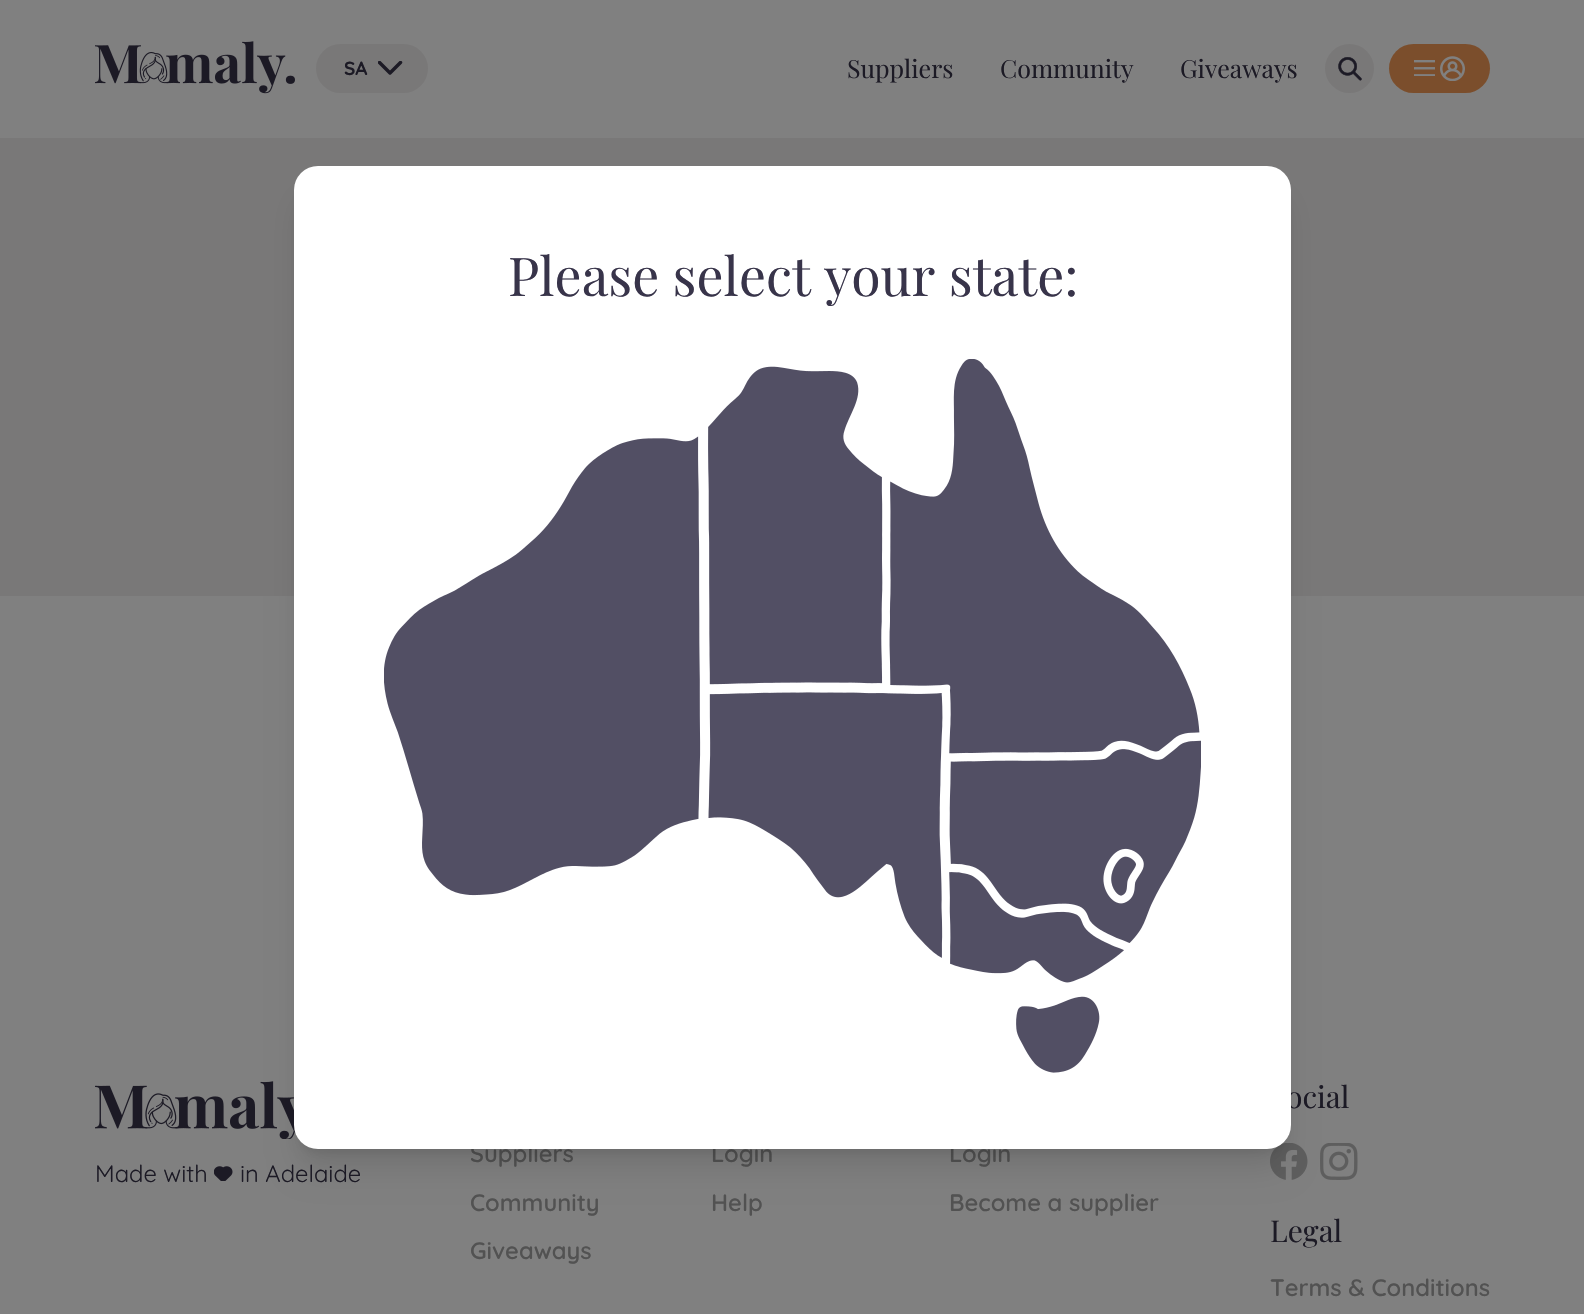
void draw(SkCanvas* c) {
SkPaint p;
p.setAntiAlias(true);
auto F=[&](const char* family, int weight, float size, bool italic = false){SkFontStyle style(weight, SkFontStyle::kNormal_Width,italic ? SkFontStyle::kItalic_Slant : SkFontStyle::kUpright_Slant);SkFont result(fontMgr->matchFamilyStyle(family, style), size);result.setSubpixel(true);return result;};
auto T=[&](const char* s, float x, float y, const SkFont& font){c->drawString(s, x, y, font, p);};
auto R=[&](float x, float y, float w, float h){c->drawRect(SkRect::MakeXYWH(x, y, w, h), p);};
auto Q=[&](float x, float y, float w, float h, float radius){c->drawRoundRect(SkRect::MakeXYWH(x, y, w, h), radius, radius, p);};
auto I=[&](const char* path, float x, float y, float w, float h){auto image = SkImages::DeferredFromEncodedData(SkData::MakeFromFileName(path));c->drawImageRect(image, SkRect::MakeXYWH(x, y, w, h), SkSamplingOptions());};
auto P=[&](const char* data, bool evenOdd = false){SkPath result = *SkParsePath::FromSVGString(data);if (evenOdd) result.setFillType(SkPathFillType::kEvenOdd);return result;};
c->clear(0xff797878);
p.setColor(0xff808080);
R(0,0,1584,138);
I("1.png",95,41,200,53);
p.setColor(0xff797878);
Q(316,44,112,49,24.5);
auto f1 = F("Quicksand",700,19);
p.setColor(0xff1c1a25);
T("SA",344,75,f1);
c->save();
c->clipRect(SkRect::MakeXYWH(378,61,25,14));
p.setStroke(true);
p.setStrokeWidth(3.5);
p.setStrokeCap(SkPaint::kRound_Cap);
c->drawPath(P("M379.5 62.5l10.5 10.5m0 0l10.5-10.5"),p);
c->restore();
auto f2 = F("Playfair Display",400,25);
p.setStroke(false);
T("Suppliers",847,78,f2);
T("Community",1000,78,f2);
T("Giveaways",1180,78,f2);
p.setColor(0xff797878);
c->drawCircle(1349.5,68.5,24.5,p);
I("2.png",1338,57,24,24);
p.setColor(0xff7b4e2c);
Q(1389,44,101,49,24.5);
I("3.png",1414,60,21,16);
I("4.png",1440,56,25,25);
p.setColor(0xff808080);
R(0,596,1584,718);
I("5.png",95,1081,200,58);
auto f3 = F("Quicksand",400,23.75);
p.setColor(0xff1c1a25);
T("Made with",95,1182,f3);
I("6.png",214,1166,19,15);
T("in Adelaide",240,1182,f3);
auto f4 = F("Quicksand",600,23.75);
p.setColor(0xff525252);
T("Suppliers",470,1162,f4);
T("Community",470,1211,f4);
T("Giveaways",470,1259,f4);
T("Login",711,1162,f4);
T("Help",711,1211,f4);
T("Login",949,1162,f4);
T("Become a supplier",949,1211,f4);
auto f5 = F("Playfair Display",400,30);
p.setColor(0xff1c1a25);
T("ocial",1286,1108,f5);
I("7.png",1270,1143,38,37);
I("8.png",1320,1143,38,37);
T("Legal",1270,1242,f5);
p.setColor(0xff525252);
T("Terms & Conditions",1270,1296,f4);
p.setColor(0x1a000000);
p.setMaskFilter(SkMaskFilter::MakeBlur(kNormal_SkBlurStyle, 6));
c->drawRoundRect(SkRect::MakeXYWH(301,184,983,967),16,16,p);
p.setMaskFilter(nullptr);
p.setMaskFilter(SkMaskFilter::MakeBlur(kNormal_SkBlurStyle, 15.5));
c->drawRoundRect(SkRect::MakeXYWH(300,198,985,970),18,18,p);
p.setMaskFilter(nullptr);
p.setColor(0xffffffff);
Q(294,166,997,983,24);
auto f6 = F("Playfair Display",400,53.5);
p.setColor(0xff38344a);
T("Please select your state:",508,296,f6);
I("9.png",384,359,817,714);
}
